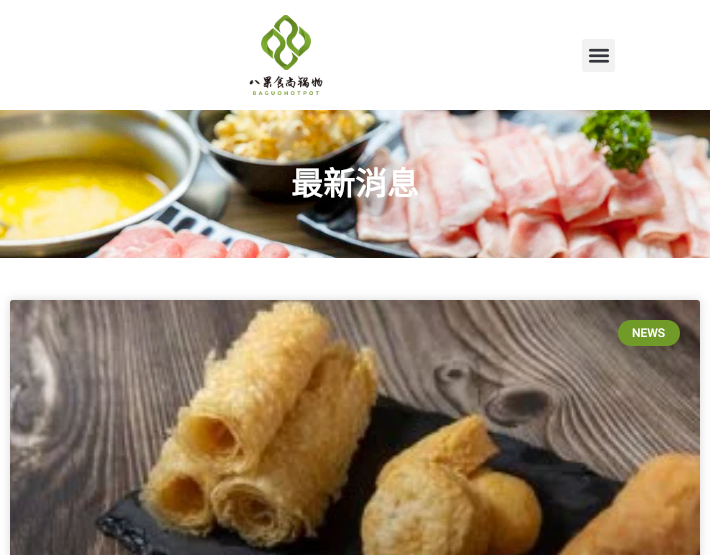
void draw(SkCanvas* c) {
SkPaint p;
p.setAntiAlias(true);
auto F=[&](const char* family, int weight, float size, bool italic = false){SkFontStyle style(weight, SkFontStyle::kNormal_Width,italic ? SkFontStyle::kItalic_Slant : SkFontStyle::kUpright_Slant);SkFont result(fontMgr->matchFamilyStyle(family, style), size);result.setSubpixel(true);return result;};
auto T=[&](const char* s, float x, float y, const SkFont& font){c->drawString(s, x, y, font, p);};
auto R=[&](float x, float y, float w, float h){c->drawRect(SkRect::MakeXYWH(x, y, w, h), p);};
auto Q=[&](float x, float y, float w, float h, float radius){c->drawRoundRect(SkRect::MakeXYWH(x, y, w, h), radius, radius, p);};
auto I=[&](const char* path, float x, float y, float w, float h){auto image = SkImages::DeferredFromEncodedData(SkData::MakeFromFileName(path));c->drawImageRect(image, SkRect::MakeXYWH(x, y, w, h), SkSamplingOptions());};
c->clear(0xffffffff);
I("1.png",249,15,74,80);
p.setColor(0xfff2f2f2);
Q(582,39,33,33,3);
I("2.png",588,48,22,15);
I("3.png",0,110,710,148);
auto f1 = F("Noto Sans CJK TC",700,32);
p.setColor(0xffffffff);
T("最新消息",291,195,f1);
p.setColor(0x26000000);
p.setMaskFilter(SkMaskFilter::MakeBlur(kNormal_SkBlurStyle, 5));
c->drawRoundRect(SkRect::MakeXYWH(10,300,690,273),3,3,p);
p.setMaskFilter(nullptr);
I("4.png",10,300,690,255);
{
const SkColor colors[] = {0x59000000,0x00000000};
const float stops[] = {0,.75};
const SkPoint ends[] = {{355,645}, {355,300}};
p.setShader(SkGradientShader::MakeLinear(ends, colors, stops, 2, SkTileMode::kClamp));
p.setAlpha(255);
}
R(10,402,690,153);
p.setShader(nullptr);
p.setColor(0xff709b29);
Q(618,320,62,26,13);
auto f2 = F("Roboto",500,12);
p.setColor(0xffffffff);
T("NEWS",632,337,f2);
}
